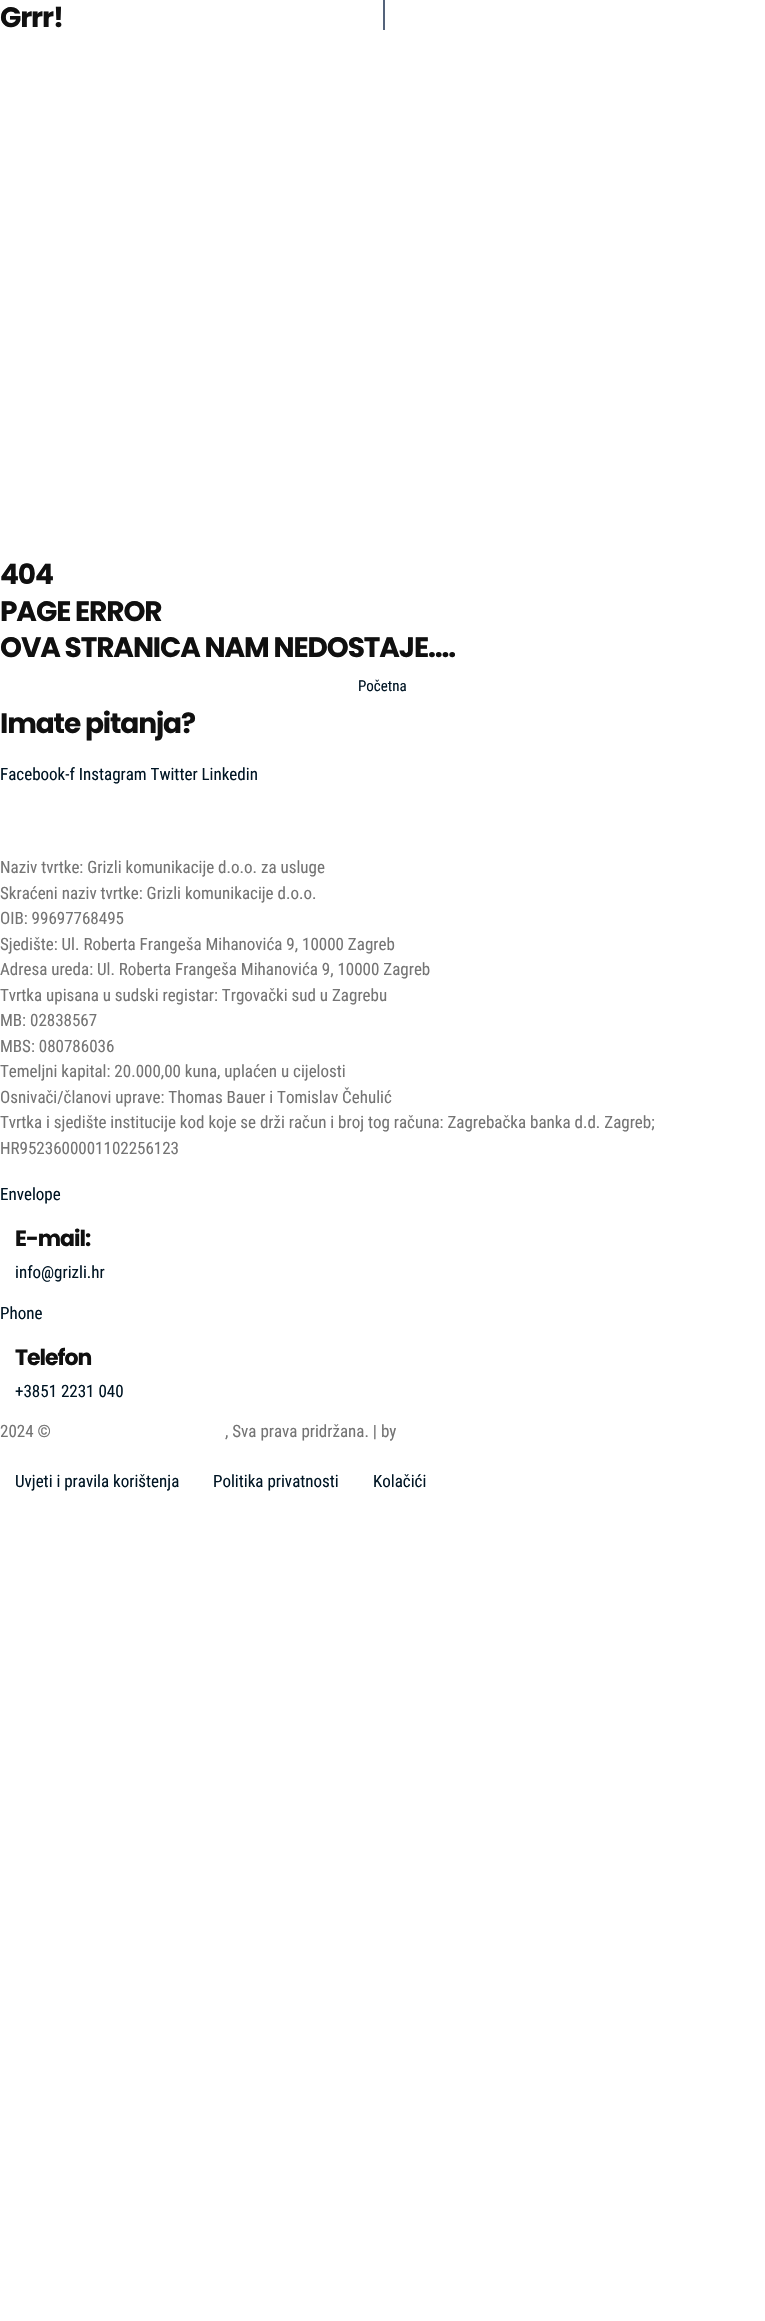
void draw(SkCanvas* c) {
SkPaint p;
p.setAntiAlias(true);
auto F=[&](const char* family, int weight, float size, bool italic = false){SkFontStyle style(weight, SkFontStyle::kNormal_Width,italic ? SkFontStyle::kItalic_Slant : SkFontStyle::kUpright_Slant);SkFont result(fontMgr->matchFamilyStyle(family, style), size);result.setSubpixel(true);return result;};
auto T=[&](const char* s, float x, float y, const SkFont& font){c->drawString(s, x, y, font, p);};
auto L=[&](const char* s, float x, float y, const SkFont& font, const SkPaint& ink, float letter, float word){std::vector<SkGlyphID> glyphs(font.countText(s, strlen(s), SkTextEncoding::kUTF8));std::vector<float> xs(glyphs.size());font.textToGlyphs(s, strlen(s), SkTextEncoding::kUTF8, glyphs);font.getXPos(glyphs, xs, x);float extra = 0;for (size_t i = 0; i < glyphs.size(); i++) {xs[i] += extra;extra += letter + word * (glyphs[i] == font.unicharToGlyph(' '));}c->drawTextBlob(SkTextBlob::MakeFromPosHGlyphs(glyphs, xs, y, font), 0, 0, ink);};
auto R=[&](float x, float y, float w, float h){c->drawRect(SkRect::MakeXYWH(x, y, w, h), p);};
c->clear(0xffffffff);
auto f1 = F("Poppins",700,28);
p.setColor(0xff101010);
L("Grrr!",0,27,f1,p,-1.1,0);
L("404",0,584,f1,p,-1.1,0);
L("PAGE ERROR",0,621,f1,p,-1.1,0);
L("OVA STRANICA NAM NEDOSTAJE....",0,657,f1,p,-1.1,0);
auto f2 = F("Roboto Condensed",400,15);
p.setColor(0xff001524);
T("Početna",358,691,f2);
p.setColor(0xff54637b);
R(383,0,2,30);
p.setColor(0xff101010);
L("Imate pitanja?",0,733,f1,p,-1.1,0);
auto f3 = F("Roboto Condensed",400,17);
p.setColor(0xff001524);
T("Facebook-f Instagram Twitter Linkedin",0,780,f3);
p.setColor(0xff747474);
T("Naziv tvrtke: Grizli komunikacije d.o.o. za usluge",0,873,f3);
T("Skraćeni naziv tvrtke: Grizli komunikacije d.o.o.",0,899,f3);
T("OIB: 99697768495",0,924,f3);
T("Sjedište: Ul. Roberta Frangeša Mihanovića 9, 10000 Zagreb",0,950,f3);
T("Adresa ureda: Ul. Roberta Frangeša Mihanovića 9, 10000 Zagreb",0,975,f3);
T("Tvrtka upisana u sudski registar: Trgovački sud u Zagrebu",0,1001,f3);
T("MB: 02838567",0,1026,f3);
T("MBS: 080786036",0,1052,f3);
T("Temeljni kapital: 20.000,00 kuna, uplaćen u cijelosti",0,1077,f3);
T("Osnivači/članovi uprave: Thomas Bauer i Tomislav Čehulić",0,1103,f3);
T("Tvrtka i sjedište institucije kod koje se drži račun i broj tog računa: Zagrebačka banka d.d. Zagreb;",0,1128,f3);
T("HR9523600001102256123",0,1154,f3);
p.setColor(0xff001524);
T("Envelope",0,1200,f3);
auto f4 = F("Poppins",700,22);
p.setColor(0xff101010);
L("E-mail:",15,1246,f4,p,-1,0);
p.setColor(0xff001524);
T("info@grizli.hr",15,1278,f3);
T("Phone",0,1319,f3);
p.setColor(0xff101010);
L("Telefon",15,1365,f4,p,-1,0);
p.setColor(0xff001524);
T("+3851 2231 040",15,1397,f3);
p.setColor(0xff747474);
T("2024 ©",0,1437,f3);
T(", Sva prava pridržana. | by",225,1437,f3);
p.setColor(0xff001524);
T("Uvjeti i pravila korištenja",15,1487,f3);
T("Politika privatnosti",213,1487,f3);
T("Kolačići",373,1487,f3);
}
